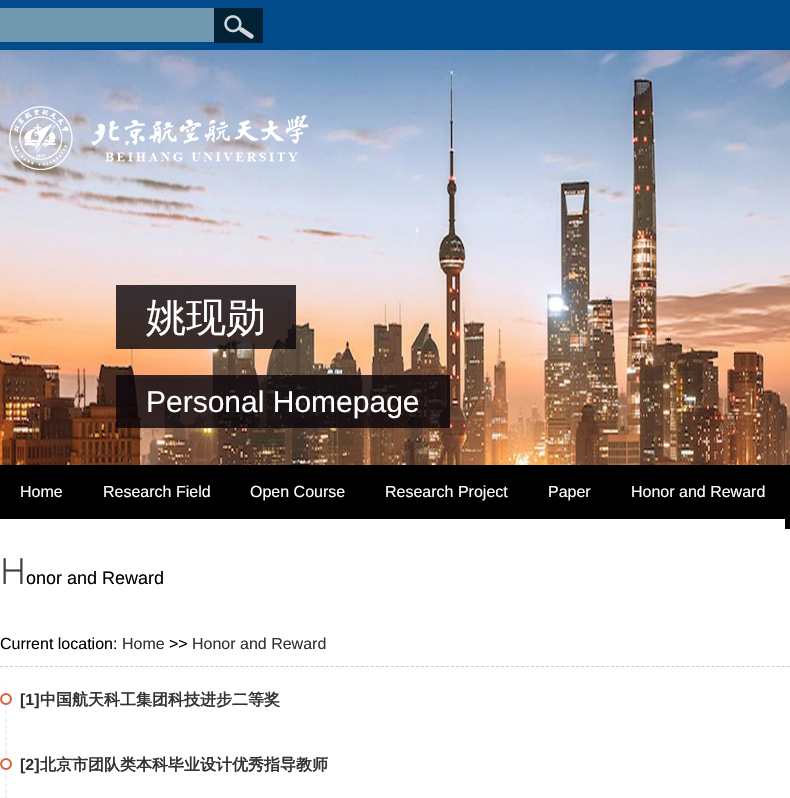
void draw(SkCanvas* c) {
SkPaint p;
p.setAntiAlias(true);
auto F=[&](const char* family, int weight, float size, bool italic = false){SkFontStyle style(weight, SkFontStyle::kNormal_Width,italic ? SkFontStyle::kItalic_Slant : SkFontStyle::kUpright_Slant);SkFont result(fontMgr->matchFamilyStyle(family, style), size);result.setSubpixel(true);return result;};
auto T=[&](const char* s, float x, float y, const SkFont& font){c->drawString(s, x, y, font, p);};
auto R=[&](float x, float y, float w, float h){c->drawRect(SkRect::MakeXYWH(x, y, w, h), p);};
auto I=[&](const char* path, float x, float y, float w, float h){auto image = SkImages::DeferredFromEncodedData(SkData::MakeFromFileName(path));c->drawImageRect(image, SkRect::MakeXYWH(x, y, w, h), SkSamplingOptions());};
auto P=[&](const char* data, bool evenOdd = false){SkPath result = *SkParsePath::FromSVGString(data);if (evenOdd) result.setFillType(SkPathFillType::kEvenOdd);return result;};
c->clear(0xffffffff);
p.setColor(0xff014b8a);
R(0,0,790,50);
p.setColor(0xff7099b0);
R(0,8,214,34);
I("1.png",214,8,49,35);
I("2.png",0,50,790,415);
I("3.png",9,106,300,64);
p.setColor(0xcc08040a);
R(116,285,180,64);
auto f1 = F("WenQuanYi Zen Hei",500,40);
p.setColor(0xffffffff);
T("姚现勋",146,331,f1);
p.setColor(0xcc08040a);
R(116,375,334,53);
auto f2 = F("Liberation Sans",400,30);
p.setColor(0xffffffff);
T("Personal Homepage",146,412,f2);
p.setColor(0xff000000);
R(0,465,785,54);
auto f3 = F("Liberation Sans",400,16);
p.setColor(0xffffffff);
T("Home",20,497,f3);
T("Research Field",103,497,f3);
T("Open Course",250,497,f3);
T("Research Project",385,497,f3);
T("Paper",548,497,f3);
T("Honor and Reward",631,497,f3);
p.setColor(0xff000000);
R(785,465,5,64);
auto f4 = F("Noto Sans",300,36);
p.setColor(0xff413e3e);
T("H",0,584,f4);
auto f5 = F("Liberation Sans",400,18);
p.setColor(0xff000000);
T("onor and Reward",26,584,f5);
p.setStroke(true);
p.setStrokeWidth(1);
p.setColor(0xffcccccc);
p.setPathEffect(SkDashPathEffect::Make({{3,2.01f}}, 0));
c->drawPath(P("M0 666.5h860"),p);
p.setPathEffect(nullptr);
p.setStroke(false);
p.setColor(0xff000000);
T("Current location:",0,649,f3);
p.setColor(0xff333333);
T("Home",122,649,f3);
p.setColor(0xff000000);
T(">>",169,649,f3);
p.setColor(0xff333333);
T("Honor and Reward",192,649,f3);
I("4.png",0,687,12,65);
auto f6 = F("Liberation Sans",700,16);
T("[1]",20,705,f6);
auto f7 = F("WenQuanYi Zen Hei",700,16);
T("中国航天科工集团科技进步二等奖",40,705,f7);
I("5.png",0,752,12,46);
T("[2]",20,770,f6);
T("北京市团队类本科毕业设计优秀指导教师",40,770,f7);
}
